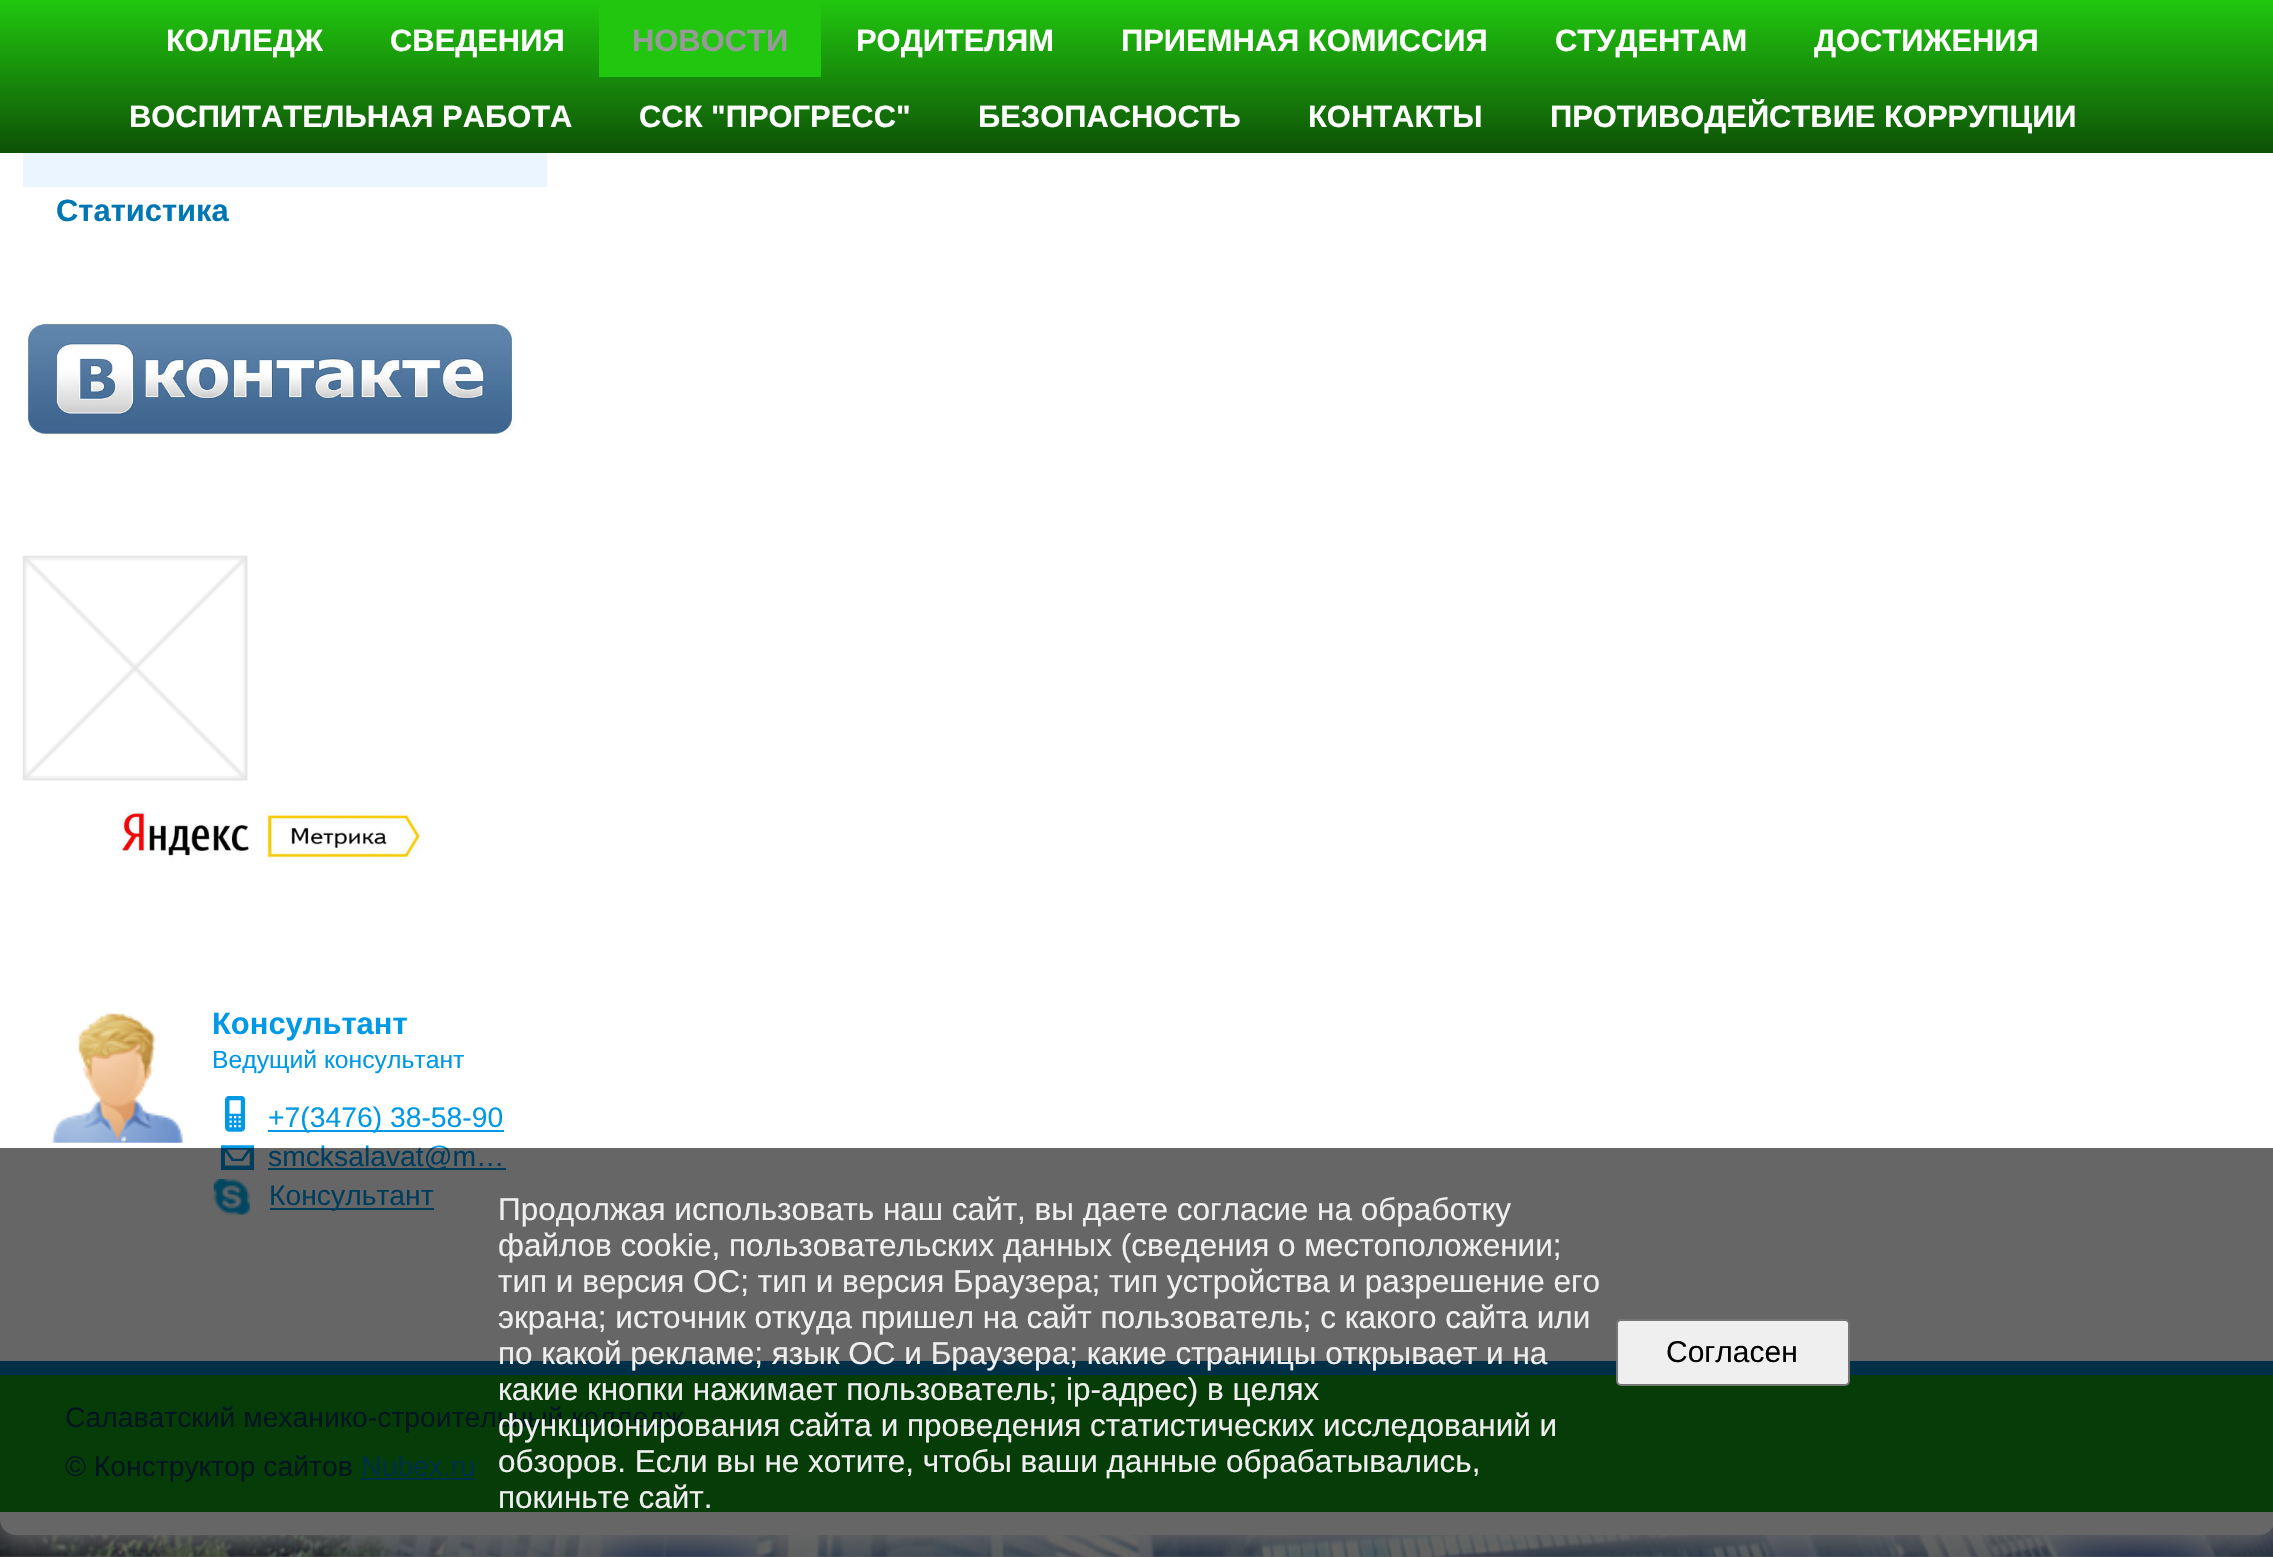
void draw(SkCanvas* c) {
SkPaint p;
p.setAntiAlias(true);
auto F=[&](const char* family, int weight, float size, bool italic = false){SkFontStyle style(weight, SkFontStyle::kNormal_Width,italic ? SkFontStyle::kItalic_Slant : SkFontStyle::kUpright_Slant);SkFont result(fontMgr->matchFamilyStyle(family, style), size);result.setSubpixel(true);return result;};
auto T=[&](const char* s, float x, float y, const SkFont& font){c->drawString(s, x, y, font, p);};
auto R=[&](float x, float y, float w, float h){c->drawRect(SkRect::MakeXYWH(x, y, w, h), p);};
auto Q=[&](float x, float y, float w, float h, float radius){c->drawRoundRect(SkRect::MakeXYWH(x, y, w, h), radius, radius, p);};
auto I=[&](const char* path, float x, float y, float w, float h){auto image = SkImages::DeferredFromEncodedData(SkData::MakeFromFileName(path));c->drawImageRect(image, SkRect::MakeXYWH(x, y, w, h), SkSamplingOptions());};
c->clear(0xffffffff);
I("1.png",0,1519,2273,38);
p.setColor(0xffffffff);
p.setMaskFilter(SkMaskFilter::MakeBlur(kNormal_SkBlurStyle, 16));
c->drawRoundRect(SkRect::MakeXYWH(-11,-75,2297,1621),27,27,p);
p.setMaskFilter(nullptr);
Q(0,-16,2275,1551,16);
{
const SkColor colors[] = {0xff21c70f,0xff0e5106};
const float stops[] = {0,1};
const SkPoint ends[] = {{1160,0}, {1160,153}};
p.setShader(SkGradientShader::MakeLinear(ends, colors, stops, 2, SkTileMode::kClamp));
p.setAlpha(255);
}
R(0,0,2273,153);
auto f1 = F("Liberation Sans",700,30.9);
p.setShader(nullptr);
p.setColor(0xffffffff);
T("КОЛЛЕДЖ",166,51,f1);
T("СВЕДЕНИЯ",390,51,f1);
p.setColor(0xff21c70f);
R(599,3,222,74);
p.setColor(0xff999999);
T("НОВОСТИ",632,51,f1);
p.setColor(0xffffffff);
T("РОДИТЕЛЯМ",856,51,f1);
T("ПРИЕМНАЯ КОМИССИЯ",1121,51,f1);
T("СТУДЕНТАМ",1555,51,f1);
T("ДОСТИЖЕНИЯ",1814,51,f1);
T("ВОСПИТАТЕЛЬНАЯ РАБОТА",129,127,f1);
T("ССК \"ПРОГРЕСС\"",639,127,f1);
T("БЕЗОПАСНОСТЬ",978,127,f1);
T("КОНТАКТЫ",1308,127,f1);
T("ПРОТИВОДЕЙСТВИЕ КОРРУПЦИИ",1550,127,f1);
p.setColor(0xffebf5ff);
R(23,153,524,34);
p.setColor(0xff0077b3);
T("Статистика",56,221,f1);
I("2.png",28,321,487,114);
I("3.png",22,555,226,226);
I("4.png",120,812,305,49);
I("5.png",51,1012,132,131);
p.setColor(0xff0099e6);
T("Консультант",212,1034,f1);
auto f2 = F("Liberation Sans",400,24.75);
T("Ведущий консультант",212,1068,f2);
I("6.png",225,1096,20,36);
R(268,1130,236,2);
auto f3 = F("Liberation Sans",400,28.3);
T("+7(3476) 38-58-90",268,1127,f3);
I("7.png",221,1145,33,25);
R(268,1168,238,2);
T("smcksalavat@m…",268,1166,f3);
I("8.png",213,1178,37,37);
R(270,1208,164,2);
T("Консультант",269,1205,f3);
p.setColor(0xff0f9513);
R(0,1375,2273,137);
p.setColor(0xff0077b3);
R(0,1361,2273,14);
p.setColor(0xff00334d);
T("Салаватский механико-строительный колледж",65,1427,f3);
T("© Конструктор сайтов",65,1476,f3);
p.setColor(0xff0077b3);
T("Nubex.ru",361,1476,f3);
R(360,1478,115,2);
p.setColor(0x99000000);
R(0,1148,2273,409);
auto f4 = F("Liberation Sans",400,31.5);
p.setColor(0xffefefef);
T("Продолжая использовать наш сайт, вы даете согласие на обработку",498,1220,f4);
T("файлов cookie, пользовательских данных (сведения о местоположении;",498,1256,f4);
T("тип и версия ОС; тип и версия Браузера; тип устройства и разрешение его",498,1292,f4);
T("экрана; источник откуда пришел на сайт пользователь; с какого сайта или",498,1328,f4);
T("по какой рекламе; язык ОС и Браузера; какие страницы открывает и на",498,1364,f4);
T("какие кнопки нажимает пользователь; ip-адрес) в целях",498,1400,f4);
T("функционирования сайта и проведения статистических исследований и",498,1436,f4);
T("обзоров. Если вы не хотите, чтобы ваши данные обрабатывались,",498,1472,f4);
T("покиньте сайт.",498,1508,f4);
c->drawRoundRect(SkRect::MakeXYWH(1617,1320,232,65),4,4,p);
p.setStroke(true);
p.setStrokeWidth(2);
p.setColor(0xff767676);
c->drawRoundRect(SkRect::MakeXYWH(1617,1320,232,65),4,4,p);
auto f5 = F("Liberation Sans",400,30);
p.setStroke(false);
p.setColor(0xff000000);
T("Согласен",1666,1362,f5);
}
